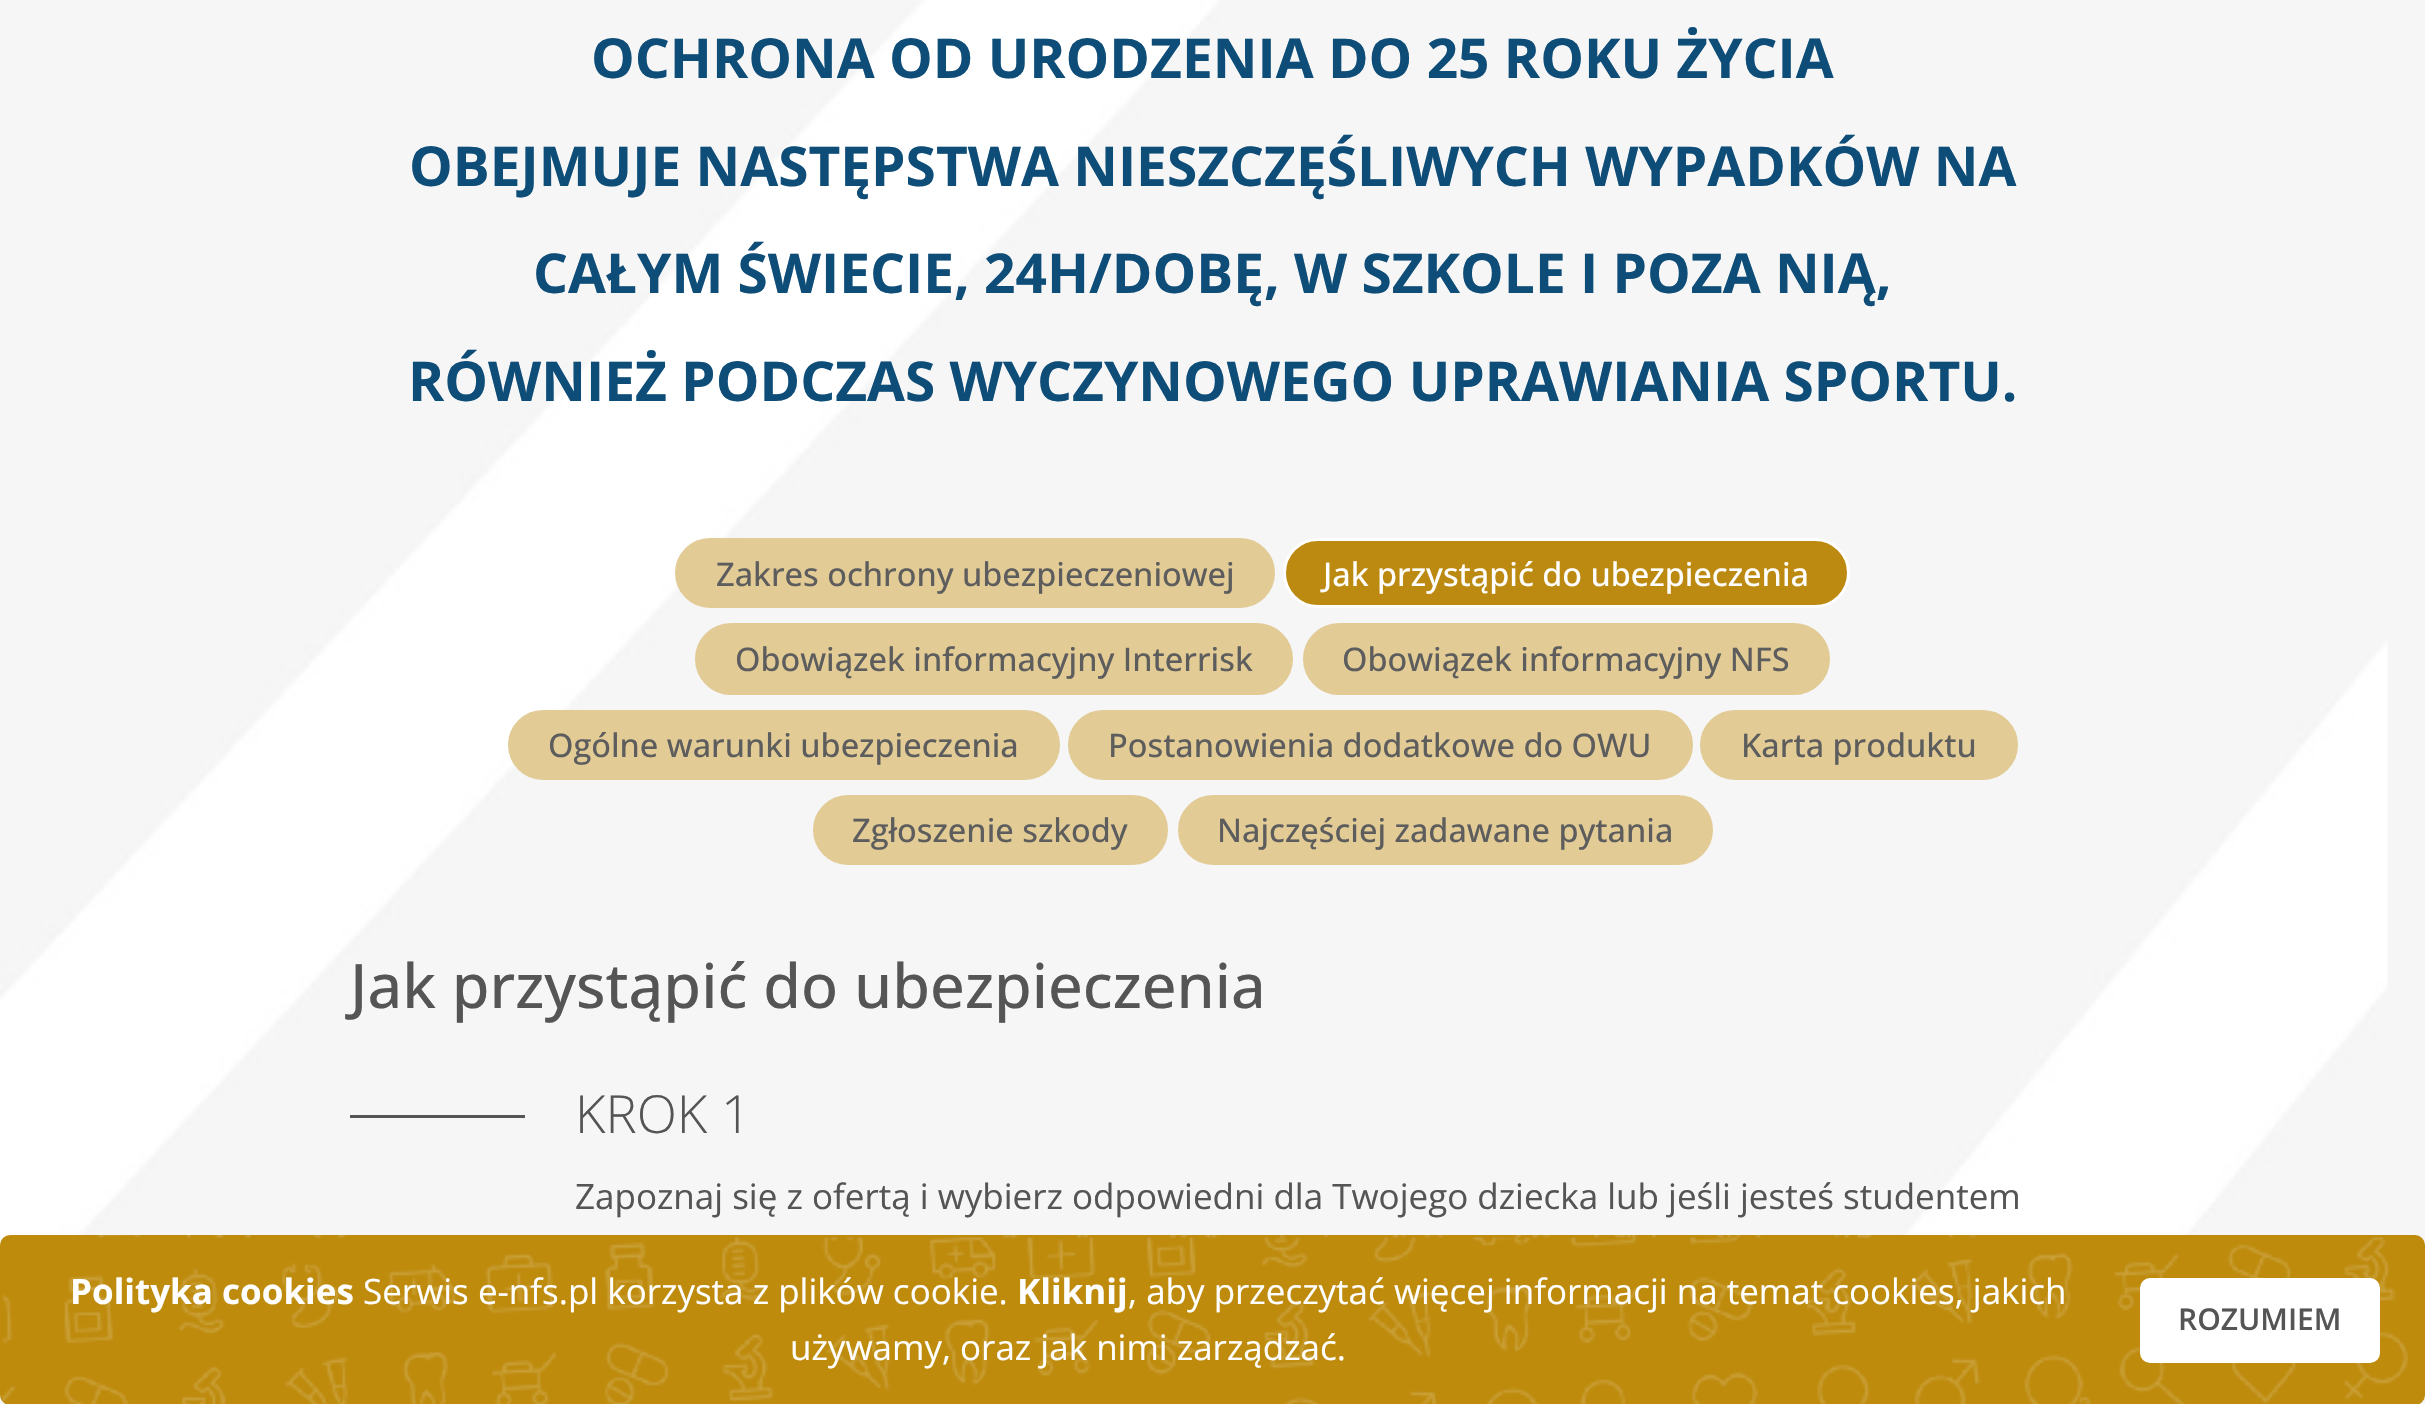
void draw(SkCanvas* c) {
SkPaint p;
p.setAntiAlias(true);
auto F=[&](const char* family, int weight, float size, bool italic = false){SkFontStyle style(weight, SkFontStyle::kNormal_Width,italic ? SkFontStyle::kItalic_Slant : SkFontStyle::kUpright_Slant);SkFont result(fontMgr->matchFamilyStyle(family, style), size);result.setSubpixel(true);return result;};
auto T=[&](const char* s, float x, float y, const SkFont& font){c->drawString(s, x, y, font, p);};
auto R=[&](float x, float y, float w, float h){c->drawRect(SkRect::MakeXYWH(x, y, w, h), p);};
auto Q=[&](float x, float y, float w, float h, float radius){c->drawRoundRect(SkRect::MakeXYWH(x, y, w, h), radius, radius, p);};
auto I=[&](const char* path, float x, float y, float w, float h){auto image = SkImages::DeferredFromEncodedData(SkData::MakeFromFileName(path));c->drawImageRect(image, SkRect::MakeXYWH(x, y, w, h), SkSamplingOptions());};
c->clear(0xfff6f6f6);
I("1.png",0,0,1220,1245);
auto f1 = F("Open Sans",700,55);
p.setColor(0xff0f4d79);
T("OCHRONA OD URODZENIA DO 25 ROKU ŻYCIA",591,78,f1);
T("OBEJMUJE NASTĘPSTWA NIESZCZĘŚLIWYCH WYPADKÓW NA",409,186,f1);
T("CAŁYM ŚWIECIE, 24H/DOBĘ, W SZKOLE I POZA NIĄ,",533,293,f1);
T("RÓWNIEŻ PODCZAS WYCZYNOWEGO UPRAWIANIA SPORTU.",408,401,f1);
p.setColor(0xffe2cb95);
c->drawRoundRect(SkRect::MakeXYWH(676.5,539.5,597,67),33.5,33.5,p);
p.setStroke(true);
p.setStrokeWidth(3);
c->drawRoundRect(SkRect::MakeXYWH(676.5,539.5,597,67),33.5,33.5,p);
auto f2 = F("Open Sans",500,32.5);
p.setStroke(false);
p.setColor(0xff5d5d5d);
T("Zakres ochrony ubezpieczeniowej",716,586,f2);
p.setColor(0xffbc8a11);
c->drawRoundRect(SkRect::MakeXYWH(1284.5,539.5,564,67),33.5,33.5,p);
p.setStroke(true);
p.setColor(0xffffffff);
c->drawRoundRect(SkRect::MakeXYWH(1284.5,539.5,564,67),33.5,33.5,p);
p.setStroke(false);
T("Jak przystąpić do ubezpieczenia",1323,586,f2);
p.setColor(0xffe2cb95);
c->drawRoundRect(SkRect::MakeXYWH(696.5,624.5,595,69),34.5,34.5,p);
p.setStroke(true);
c->drawRoundRect(SkRect::MakeXYWH(696.5,624.5,595,69),34.5,34.5,p);
p.setStroke(false);
p.setColor(0xff5d5d5d);
T("Obowiązek informacyjny Interrisk",735,671,f2);
I("2.png",1770,642,618,593);
p.setColor(0xffe2cb95);
c->drawRoundRect(SkRect::MakeXYWH(1304.5,624.5,524,69),34.5,34.5,p);
p.setStroke(true);
c->drawRoundRect(SkRect::MakeXYWH(1304.5,624.5,524,69),34.5,34.5,p);
p.setStroke(false);
p.setColor(0xff5d5d5d);
T("Obowiązek informacyjny NFS",1342,671,f2);
p.setColor(0xffe2cb95);
c->drawRoundRect(SkRect::MakeXYWH(509.5,711.5,549,67),33.5,33.5,p);
p.setStroke(true);
c->drawRoundRect(SkRect::MakeXYWH(509.5,711.5,549,67),33.5,33.5,p);
p.setStroke(false);
p.setColor(0xff5d5d5d);
T("Ogólne warunki ubezpieczenia",548,757,f2);
p.setColor(0xffe2cb95);
c->drawRoundRect(SkRect::MakeXYWH(1069.5,711.5,622,67),33.5,33.5,p);
p.setStroke(true);
c->drawRoundRect(SkRect::MakeXYWH(1069.5,711.5,622,67),33.5,33.5,p);
p.setStroke(false);
p.setColor(0xff5d5d5d);
T("Postanowienia dodatkowe do OWU",1108,757,f2);
p.setColor(0xffe2cb95);
c->drawRoundRect(SkRect::MakeXYWH(1701.5,711.5,315,67),33.5,33.5,p);
p.setStroke(true);
c->drawRoundRect(SkRect::MakeXYWH(1701.5,711.5,315,67),33.5,33.5,p);
p.setStroke(false);
p.setColor(0xff5d5d5d);
T("Karta produktu",1741,757,f2);
p.setColor(0xffe2cb95);
c->drawRoundRect(SkRect::MakeXYWH(814.5,796.5,352,67),33.5,33.5,p);
p.setStroke(true);
c->drawRoundRect(SkRect::MakeXYWH(814.5,796.5,352,67),33.5,33.5,p);
p.setStroke(false);
p.setColor(0xff5d5d5d);
T("Zgłoszenie szkody",852,842,f2);
p.setColor(0xffe2cb95);
c->drawRoundRect(SkRect::MakeXYWH(1179.5,796.5,532,67),33.5,33.5,p);
p.setStroke(true);
c->drawRoundRect(SkRect::MakeXYWH(1179.5,796.5,532,67),33.5,33.5,p);
p.setStroke(false);
p.setColor(0xff5d5d5d);
T("Najczęściej zadawane pytania",1217,842,f2);
auto f3 = F("Open Sans",500,61.25);
p.setColor(0xff555555);
T("Jak przystąpić do ubezpieczenia",350,1008,f3);
R(350,1115,175,3);
auto f4 = F("Open Sans",300,52.5);
T("KROK 1",575,1133,f4);
auto f5 = F("Open Sans",400,35);
T("Zapoznaj się z ofertą i wybierz odpowiedni dla Twojego dziecka lub jeśli jesteś studentem",575,1209,f5);
p.setColor(0xffbe8b0d);
Q(0,1235,2425,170,10);
I("3.png",2,1235,2406,169);
auto f6 = F("Open Sans",700,35);
p.setColor(0xffffffff);
T("Polityka cookies",70,1304,f6);
T("Serwis e-nfs.pl korzysta z plików cookie.",363,1304,f5);
T("Kliknij",1017,1304,f6);
T(", aby przeczytać więcej informacji na temat cookies, jakich",1128,1304,f5);
T("używamy, oraz jak nimi zarządzać.",790,1360,f5);
Q(2140,1278,240,85,10);
auto f7 = F("Open Sans",600,30);
p.setColor(0xff555555);
T("ROZUMIEM",2178,1330,f7);
}
